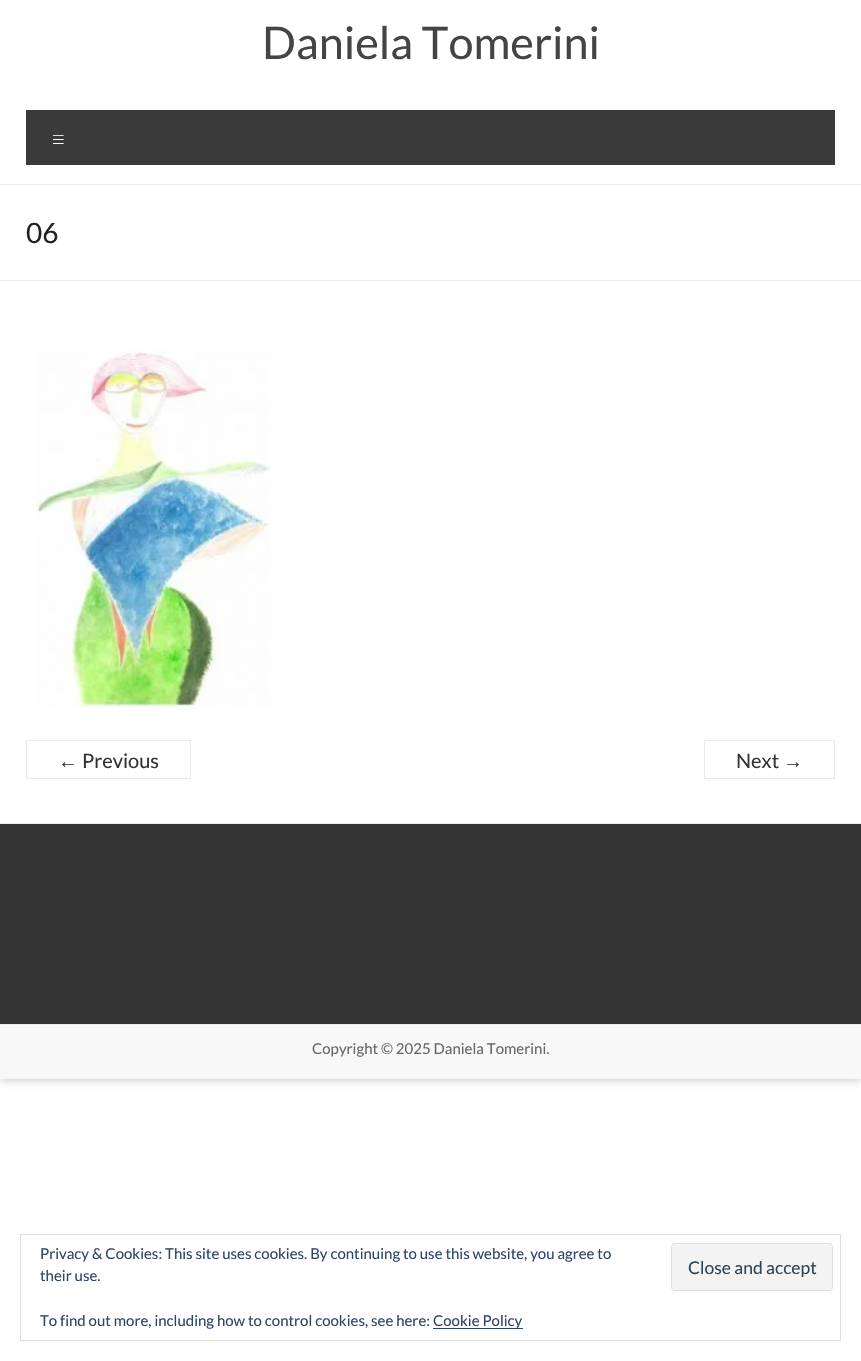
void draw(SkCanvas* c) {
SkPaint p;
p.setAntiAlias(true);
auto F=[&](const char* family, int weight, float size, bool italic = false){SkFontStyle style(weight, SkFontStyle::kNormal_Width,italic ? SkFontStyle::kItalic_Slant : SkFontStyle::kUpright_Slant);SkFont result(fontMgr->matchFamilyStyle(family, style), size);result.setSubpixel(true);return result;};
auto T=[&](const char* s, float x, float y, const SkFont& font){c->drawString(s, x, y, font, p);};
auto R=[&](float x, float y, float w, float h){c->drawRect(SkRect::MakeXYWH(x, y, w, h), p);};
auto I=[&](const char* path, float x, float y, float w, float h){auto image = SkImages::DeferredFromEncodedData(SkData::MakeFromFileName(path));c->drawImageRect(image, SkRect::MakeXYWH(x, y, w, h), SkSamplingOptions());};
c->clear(0xffffffff);
p.setColor(0x4d646464);
p.setMaskFilter(SkMaskFilter::MakeBlur(kNormal_SkBlurStyle, 4));
c->drawRect(SkRect::MakeXYWH(0,3,861,1078),p);
p.setMaskFilter(nullptr);
p.setColor(0xffffffff);
R(0,0,861,823);
p.setColor(0xffeaeaea);
R(0,184,861,1);
auto f1 = F("Lato",400,45);
p.setColor(0xff444444);
T("Daniela Tomerini",262,59,f1);
p.setColor(0xff3a3a3a);
R(26,110,809,55);
auto f2 = F("Lato",300,25);
p.setColor(0xffffffff);
T("≡",51,148,f2);
p.setColor(0xffeaeaea);
R(0,280,861,1);
auto f3 = F("Lato",400,28);
p.setColor(0xff222222);
T("06",26,243,f3);
I("1.png",36,351,235,356);
p.setStroke(true);
p.setStrokeWidth(1);
p.setColor(0xffeaeaea);
c->drawRect(SkRect::MakeXYWH(26.5,740.5,164,38),p);
auto f4 = F("Liberation Sans",400,20);
p.setStroke(false);
p.setColor(0xff333333);
T("←",58,768,f4);
auto f5 = F("Lato",400,20);
T("Previous",82,768,f5);
p.setStroke(true);
p.setColor(0xffeaeaea);
c->drawRect(SkRect::MakeXYWH(704.5,740.5,130,38),p);
p.setStroke(false);
p.setColor(0xff333333);
T("Next",736,768,f5);
T("→",783,768,f4);
R(0,824,861,200);
p.setColor(0xffeaeaea);
R(0,823,861,1);
p.setColor(0xfff8f8f8);
R(0,1025,861,54);
p.setColor(0xffeaeaea);
R(0,1024,861,1);
auto f6 = F("Lato",400,15);
p.setColor(0xff666666);
T("Copyright © 2025 Daniela Tomerini.",312,1054,f6);
p.setStroke(true);
p.setColor(0xffdedede);
c->drawRect(SkRect::MakeXYWH(20.5,1234.5,820,106),p);
p.setStroke(false);
p.setColor(0xff2e4467);
T("Privacy & Cookies: This site uses cookies. By continuing to use this website, you agree to",40,1259,f6);
T("their use.",40,1281,f6);
p.setColor(0xfff3f3f3);
c->drawRoundRect(SkRect::MakeXYWH(671.5,1243.5,161,47),3.5,3.5,p);
p.setStroke(true);
p.setColor(0xffdedede);
c->drawRoundRect(SkRect::MakeXYWH(671.5,1243.5,161,47),3.5,3.5,p);
auto f7 = F("Lato",400,17.5);
p.setStroke(false);
p.setColor(0xff2e4453);
T("Close and accept",688,1274,f7);
p.setColor(0xff2e4467);
T("To find out more, including how to control cookies, see here:",40,1326,f6);
R(433,1328,90,1);
T("Cookie Policy",433,1326,f6);
}
